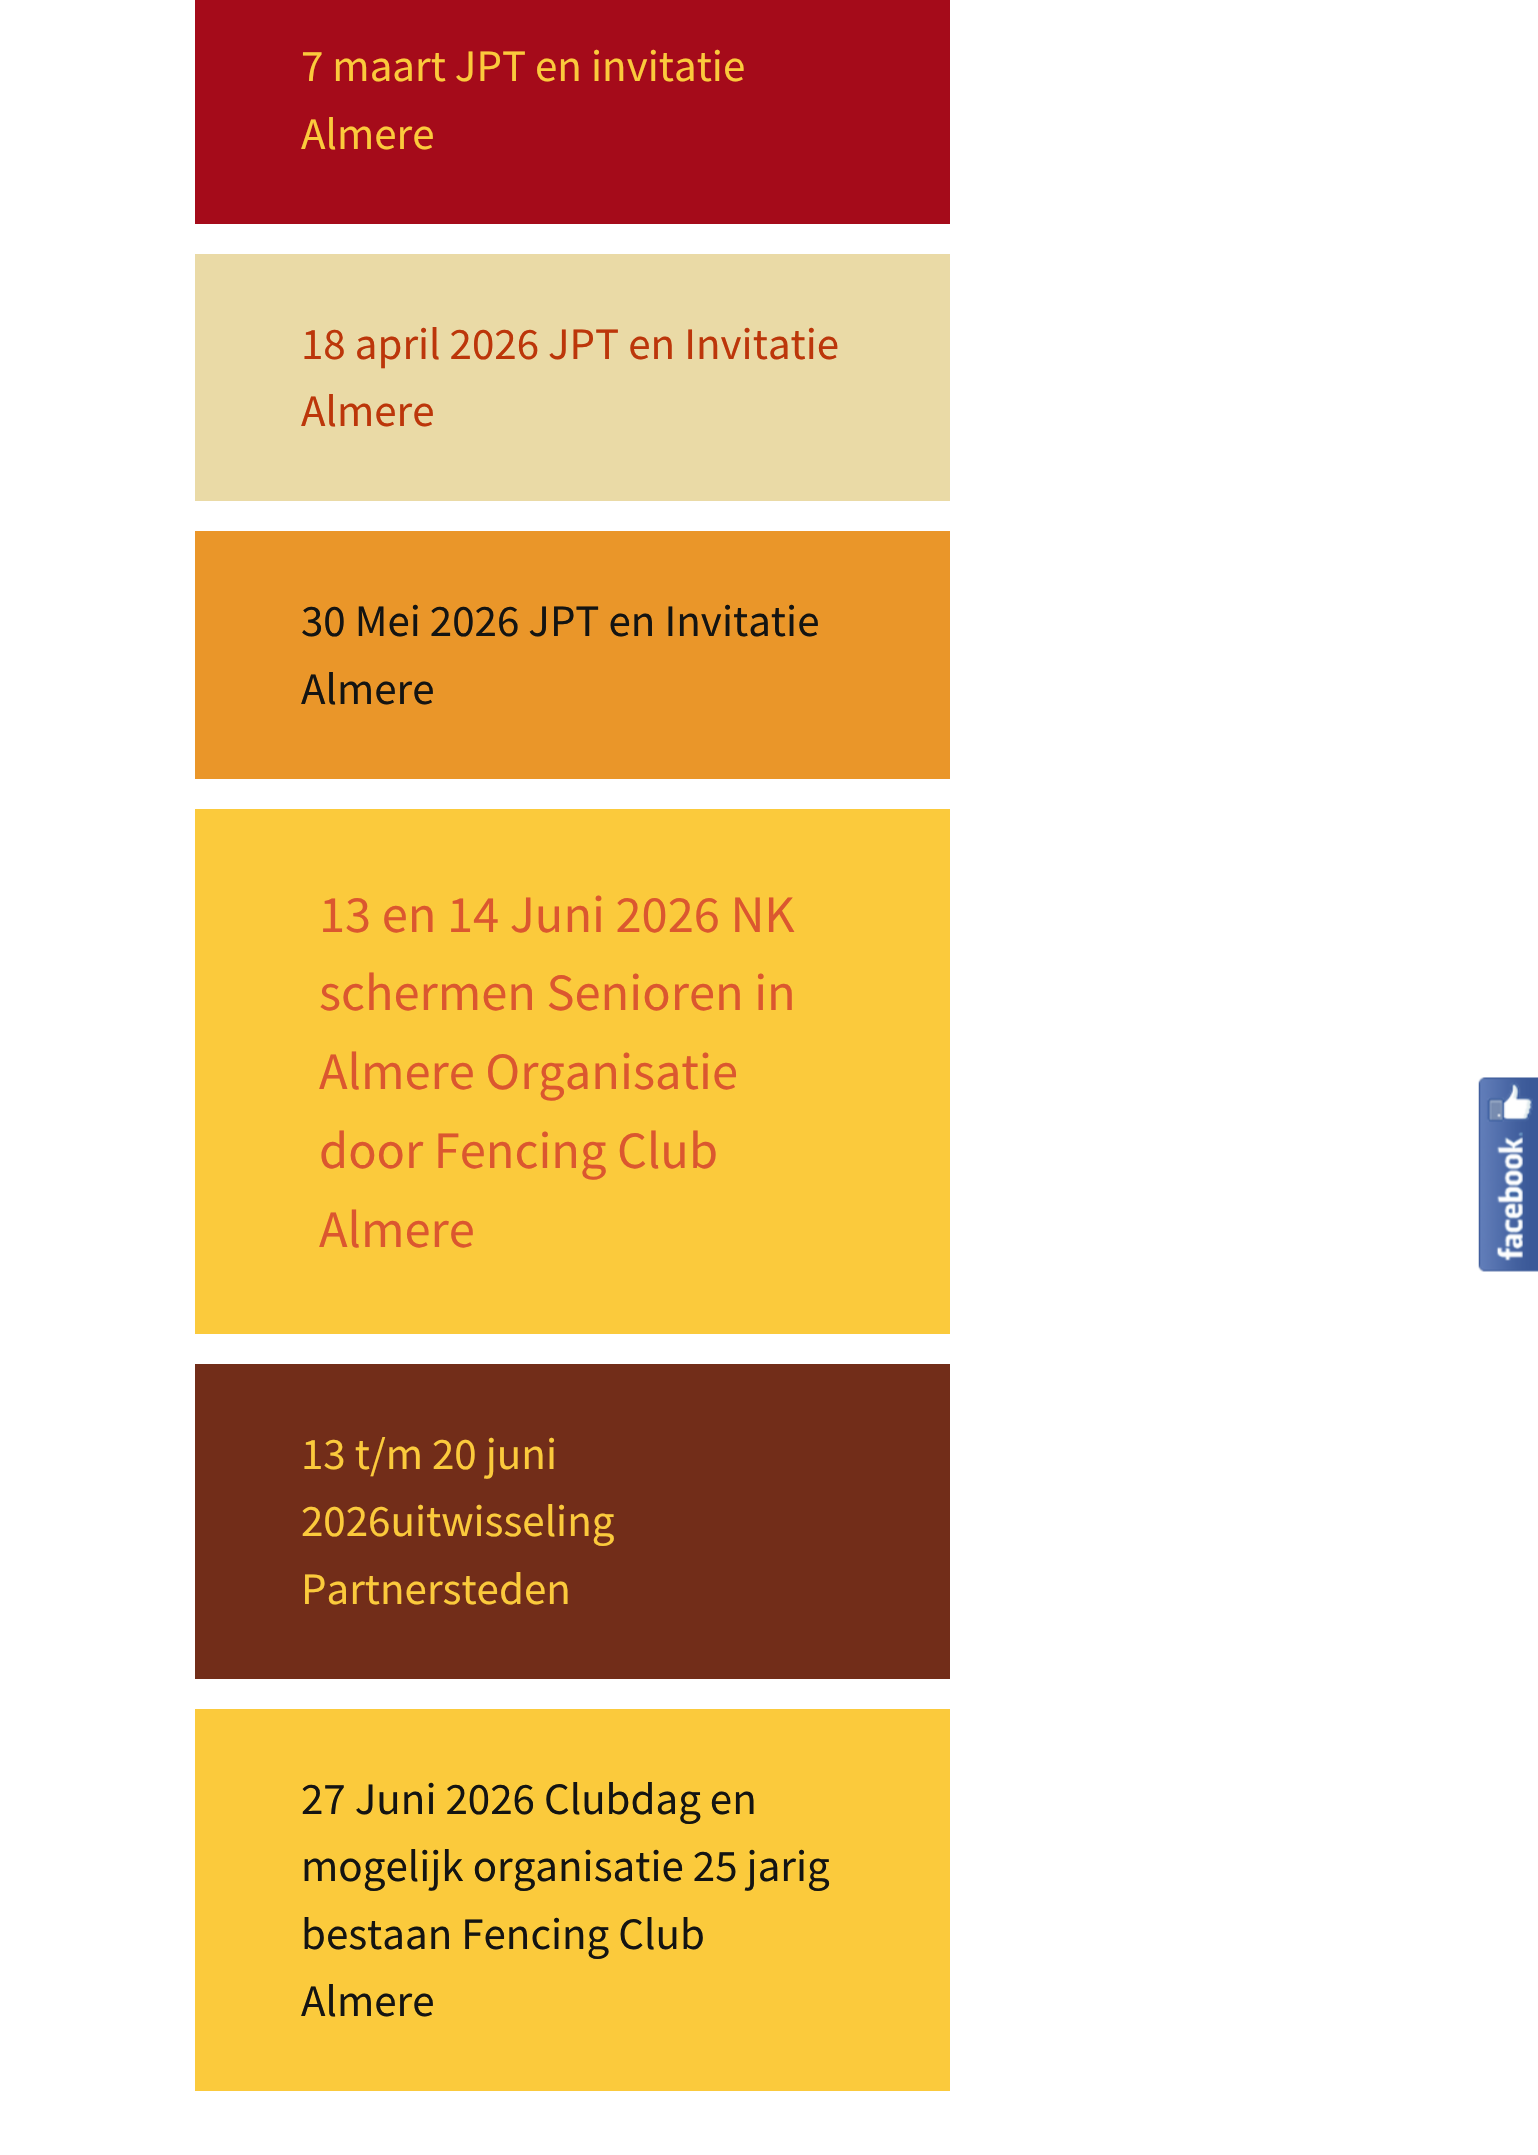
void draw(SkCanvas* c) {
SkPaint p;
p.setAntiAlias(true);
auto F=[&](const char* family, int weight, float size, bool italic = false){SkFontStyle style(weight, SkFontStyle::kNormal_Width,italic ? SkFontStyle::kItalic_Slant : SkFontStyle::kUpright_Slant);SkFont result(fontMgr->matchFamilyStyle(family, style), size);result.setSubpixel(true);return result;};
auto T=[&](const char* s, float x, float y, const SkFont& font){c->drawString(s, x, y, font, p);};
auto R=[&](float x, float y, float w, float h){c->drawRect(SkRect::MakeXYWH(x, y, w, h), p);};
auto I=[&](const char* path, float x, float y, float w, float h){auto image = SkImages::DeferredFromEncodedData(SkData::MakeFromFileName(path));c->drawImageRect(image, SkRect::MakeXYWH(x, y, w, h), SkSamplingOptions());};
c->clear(0xffffffff);
p.setColor(0xffa50b1a);
R(195,0,755,224);
auto f1 = F("Source Sans Pro",400,45);
p.setColor(0xfffbca3c);
T("7 maart JPT en invitatie",301,81,f1);
T("Almere",301,149,f1);
p.setColor(0xffeadaa6);
R(195,254,755,247);
p.setColor(0xffbc360a);
T("18 april 2026 JPT en Invitatie",301,359,f1);
T("Almere",301,426,f1);
p.setColor(0xffea9629);
R(195,531,755,248);
p.setColor(0xff141412);
T("30 Mei 2026 JPT en Invitatie",301,636,f1);
T("Almere",301,704,f1);
p.setColor(0xfffbca3c);
R(195,809,755,525);
auto f2 = F("Source Sans Pro",400,52.5);
p.setColor(0xffdb572f);
T("13 en 14 Juni 2026 NK",319,932,f2);
T("schermen Senioren in",319,1010,f2);
T("Almere Organisatie",319,1089,f2);
T("door Fencing Club",319,1168,f2);
T("Almere",319,1247,f2);
p.setColor(0xff722d19);
R(195,1364,755,315);
p.setColor(0xfffbca3c);
T("13 t/m 20 juni",301,1469,f1);
T("2026uitwisseling",301,1536,f1);
T("Partnersteden",301,1604,f1);
R(195,1709,755,382);
p.setColor(0xff141412);
T("27 Juni 2026 Clubdag en",301,1814,f1);
T("mogelijk organisatie 25 jarig",301,1881,f1);
T("bestaan Fencing Club",301,1949,f1);
T("Almere",301,2016,f1);
I("1.png",1478,1077,60,195);
}
